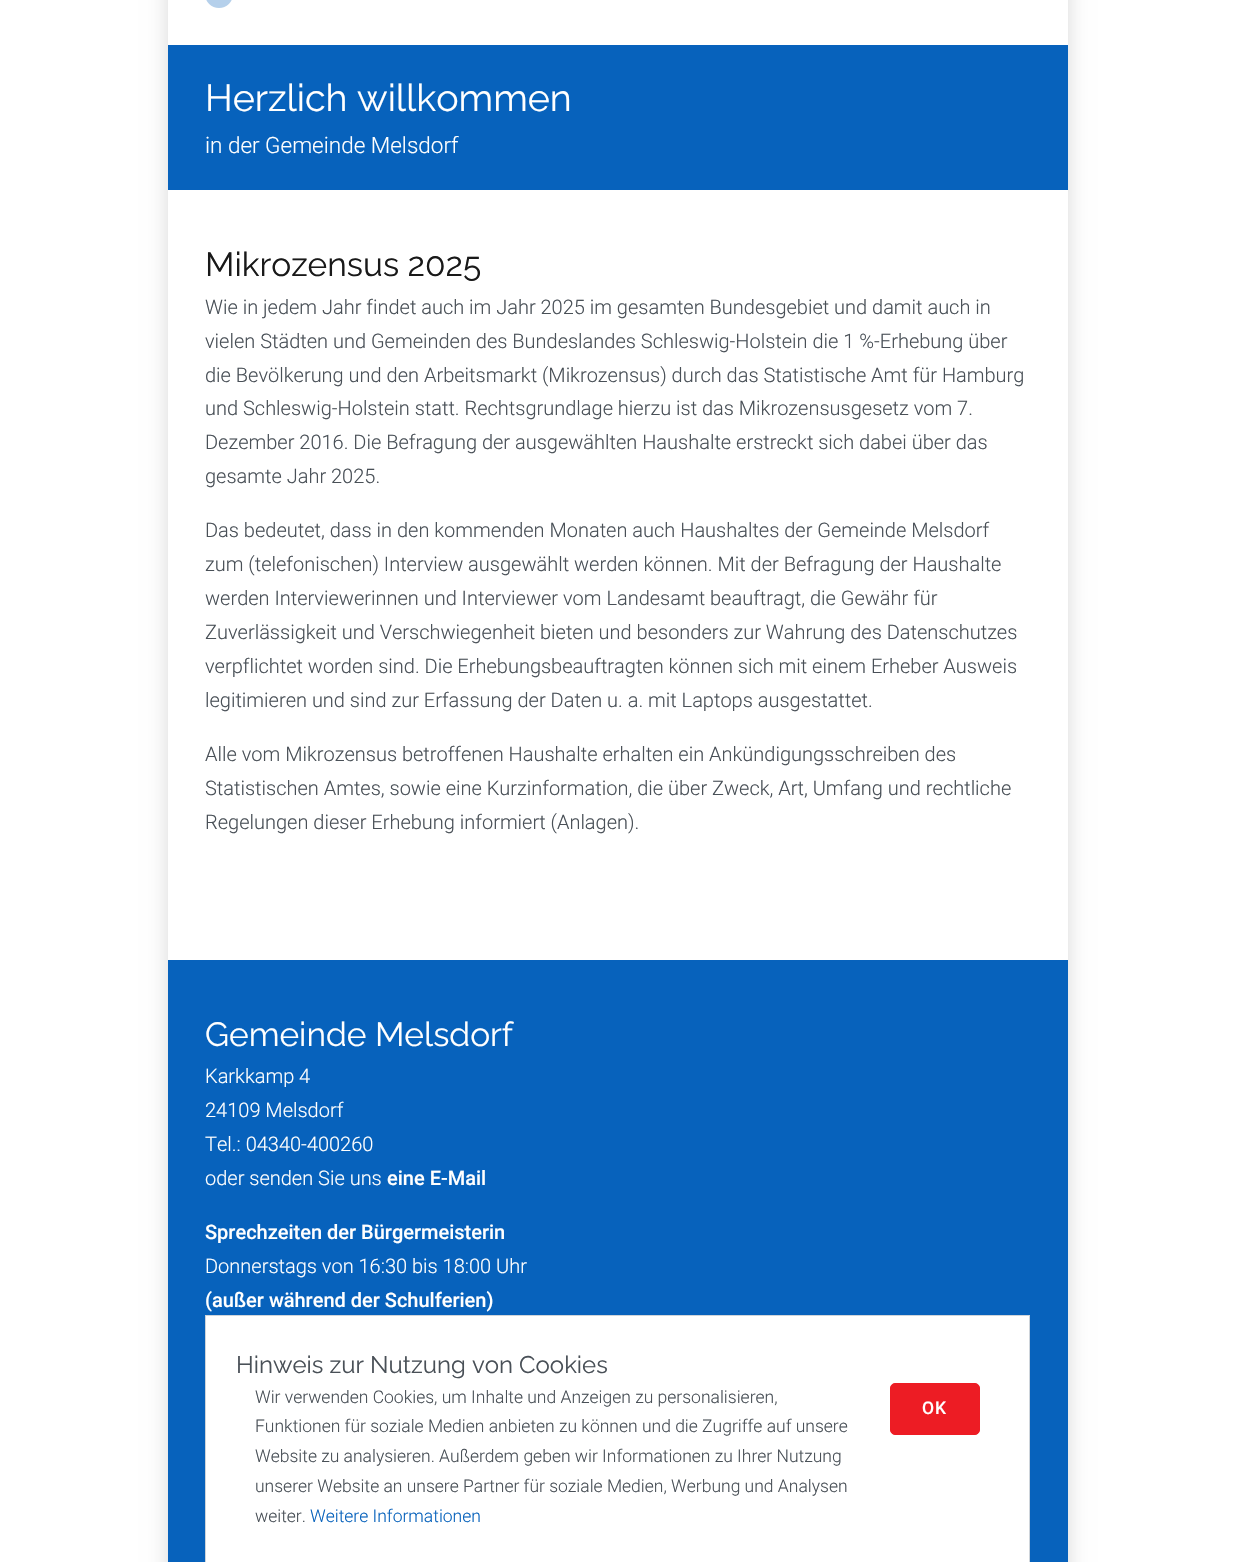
void draw(SkCanvas* c) {
SkPaint p;
p.setAntiAlias(true);
auto F=[&](const char* family, int weight, float size, bool italic = false){SkFontStyle style(weight, SkFontStyle::kNormal_Width,italic ? SkFontStyle::kItalic_Slant : SkFontStyle::kUpright_Slant);SkFont result(fontMgr->matchFamilyStyle(family, style), size);result.setSubpixel(true);return result;};
auto T=[&](const char* s, float x, float y, const SkFont& font){c->drawString(s, x, y, font, p);};
auto L=[&](const char* s, float x, float y, const SkFont& font, const SkPaint& ink, float letter, float word){std::vector<SkGlyphID> glyphs(font.countText(s, strlen(s), SkTextEncoding::kUTF8));std::vector<float> xs(glyphs.size());font.textToGlyphs(s, strlen(s), SkTextEncoding::kUTF8, glyphs);font.getXPos(glyphs, xs, x);float extra = 0;for (size_t i = 0; i < glyphs.size(); i++) {xs[i] += extra;extra += letter + word * (glyphs[i] == font.unicharToGlyph(' '));}c->drawTextBlob(SkTextBlob::MakeFromPosHGlyphs(glyphs, xs, y, font), 0, 0, ink);};
auto R=[&](float x, float y, float w, float h){c->drawRect(SkRect::MakeXYWH(x, y, w, h), p);};
c->clear(0xffffffff);
p.setColor(0x26000000);
p.setMaskFilter(SkMaskFilter::MakeBlur(kNormal_SkBlurStyle, 10));
c->drawRect(SkRect::MakeXYWH(168,-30,900,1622),p);
p.setMaskFilter(nullptr);
p.setColor(0xffffffff);
R(168,0,900,45);
p.setStroke(true);
p.setStrokeWidth(8);
p.setColor(0xffb5d0eb);
c->drawCircle(219,-6,10,p);
p.setStroke(false);
p.setColor(0xff0762bc);
R(168,45,900,145);
auto f1 = F("Raleway",100,37.6);
p.setColor(0xffffffff);
T("Herzlich willkommen",205,111,f1);
auto f2 = F("Roboto",300,22.5);
T("in der Gemeinde Melsdorf",205,153,f2);
R(168,190,900,770);
auto f3 = F("Raleway",100,33.5);
p.setColor(0xff191919);
T("Mikrozensus 2025",205,276,f3);
auto f4 = F("Roboto",300,20);
p.setColor(0xff495057);
T("Wie in jedem Jahr findet auch im Jahr 2025 im gesamten Bundesgebiet und damit auch in",205,314,f4);
T("vielen Städten und Gemeinden des Bundeslandes Schleswig-Holstein die 1 %-Erhebung über",205,348,f4);
T("die Bevölkerung und den Arbeitsmarkt (Mikrozensus) durch das Statistische Amt für Hamburg",205,382,f4);
T("und Schleswig-Holstein statt. Rechtsgrundlage hierzu ist das Mikrozensusgesetz vom 7.",205,415,f4);
T("Dezember 2016. Die Befragung der ausgewählten Haushalte erstreckt sich dabei über das",205,449,f4);
T("gesamte Jahr 2025.",205,483,f4);
T("Das bedeutet, dass in den kommenden Monaten auch Haushaltes der Gemeinde Melsdorf",205,537,f4);
T("zum (telefonischen) Interview ausgewählt werden können. Mit der Befragung der Haushalte",205,571,f4);
T("werden Interviewerinnen und Interviewer vom Landesamt beauftragt, die Gewähr für",205,605,f4);
T("Zuverlässigkeit und Verschwiegenheit bieten und besonders zur Wahrung des Datenschutzes",205,639,f4);
T("verpflichtet worden sind. Die Erhebungsbeauftragten können sich mit einem Erheber Ausweis",205,673,f4);
T("legitimieren und sind zur Erfassung der Daten u. a. mit Laptops ausgestattet.",205,707,f4);
T("Alle vom Mikrozensus betroffenen Haushalte erhalten ein Ankündigungsschreiben des",205,761,f4);
T("Statistischen Amtes, sowie eine Kurzinformation, die über Zweck, Art, Umfang und rechtliche",205,795,f4);
T("Regelungen dieser Erhebung informiert (Anlagen).",205,829,f4);
p.setColor(0xff0762bc);
R(168,960,900,602);
p.setColor(0xffffffff);
T("Gemeinde Melsdorf",205,1046,f3);
T("Karkkamp 4",205,1083,f4);
T("24109 Melsdorf",205,1117,f4);
T("Tel.: 04340-400260",205,1151,f4);
T("oder senden Sie uns",205,1185,f4);
auto f5 = F("Roboto",500,20);
T("eine E-Mail",387,1185,f5);
T("Sprechzeiten der Bürgermeisterin",205,1239,f5);
T("Donnerstags von 16:30 bis 18:00 Uhr",205,1273,f4);
T("(außer während der Schulferien)",205,1307,f5);
c->drawRect(SkRect::MakeXYWH(205.5,1315.5,824,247),p);
p.setStroke(true);
p.setStrokeWidth(1);
p.setColor(0xffced4da);
c->drawRect(SkRect::MakeXYWH(205.5,1315.5,824,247),p);
auto f6 = F("Raleway",100,24);
p.setStroke(false);
p.setColor(0xff495057);
T("Hinweis zur Nutzung von Cookies",236,1373,f6);
auto f7 = F("Roboto",300,17.5);
T("Wir verwenden Cookies, um Inhalte und Anzeigen zu personalisieren,",255,1403,f7);
T("Funktionen für soziale Medien anbieten zu können und die Zugriffe auf unsere",255,1432,f7);
T("Website zu analysieren. Außerdem geben wir Informationen zu Ihrer Nutzung",255,1462,f7);
T("unserer Website an unsere Partner für soziale Medien, Werbung und Analysen",255,1492,f7);
T("weiter.",255,1522,f7);
p.setColor(0xff0762bc);
T("Weitere Informationen",310,1522,f7);
p.setColor(0xffed1c24);
c->drawRoundRect(SkRect::MakeXYWH(890.5,1383.5,89,51),4.5,4.5,p);
p.setStroke(true);
c->drawRoundRect(SkRect::MakeXYWH(890.5,1383.5,89,51),4.5,4.5,p);
auto f8 = F("Roboto",500,17.5);
p.setStroke(false);
p.setColor(0xffffffff);
L("OK",922,1414,f8,p,1,0);
}
